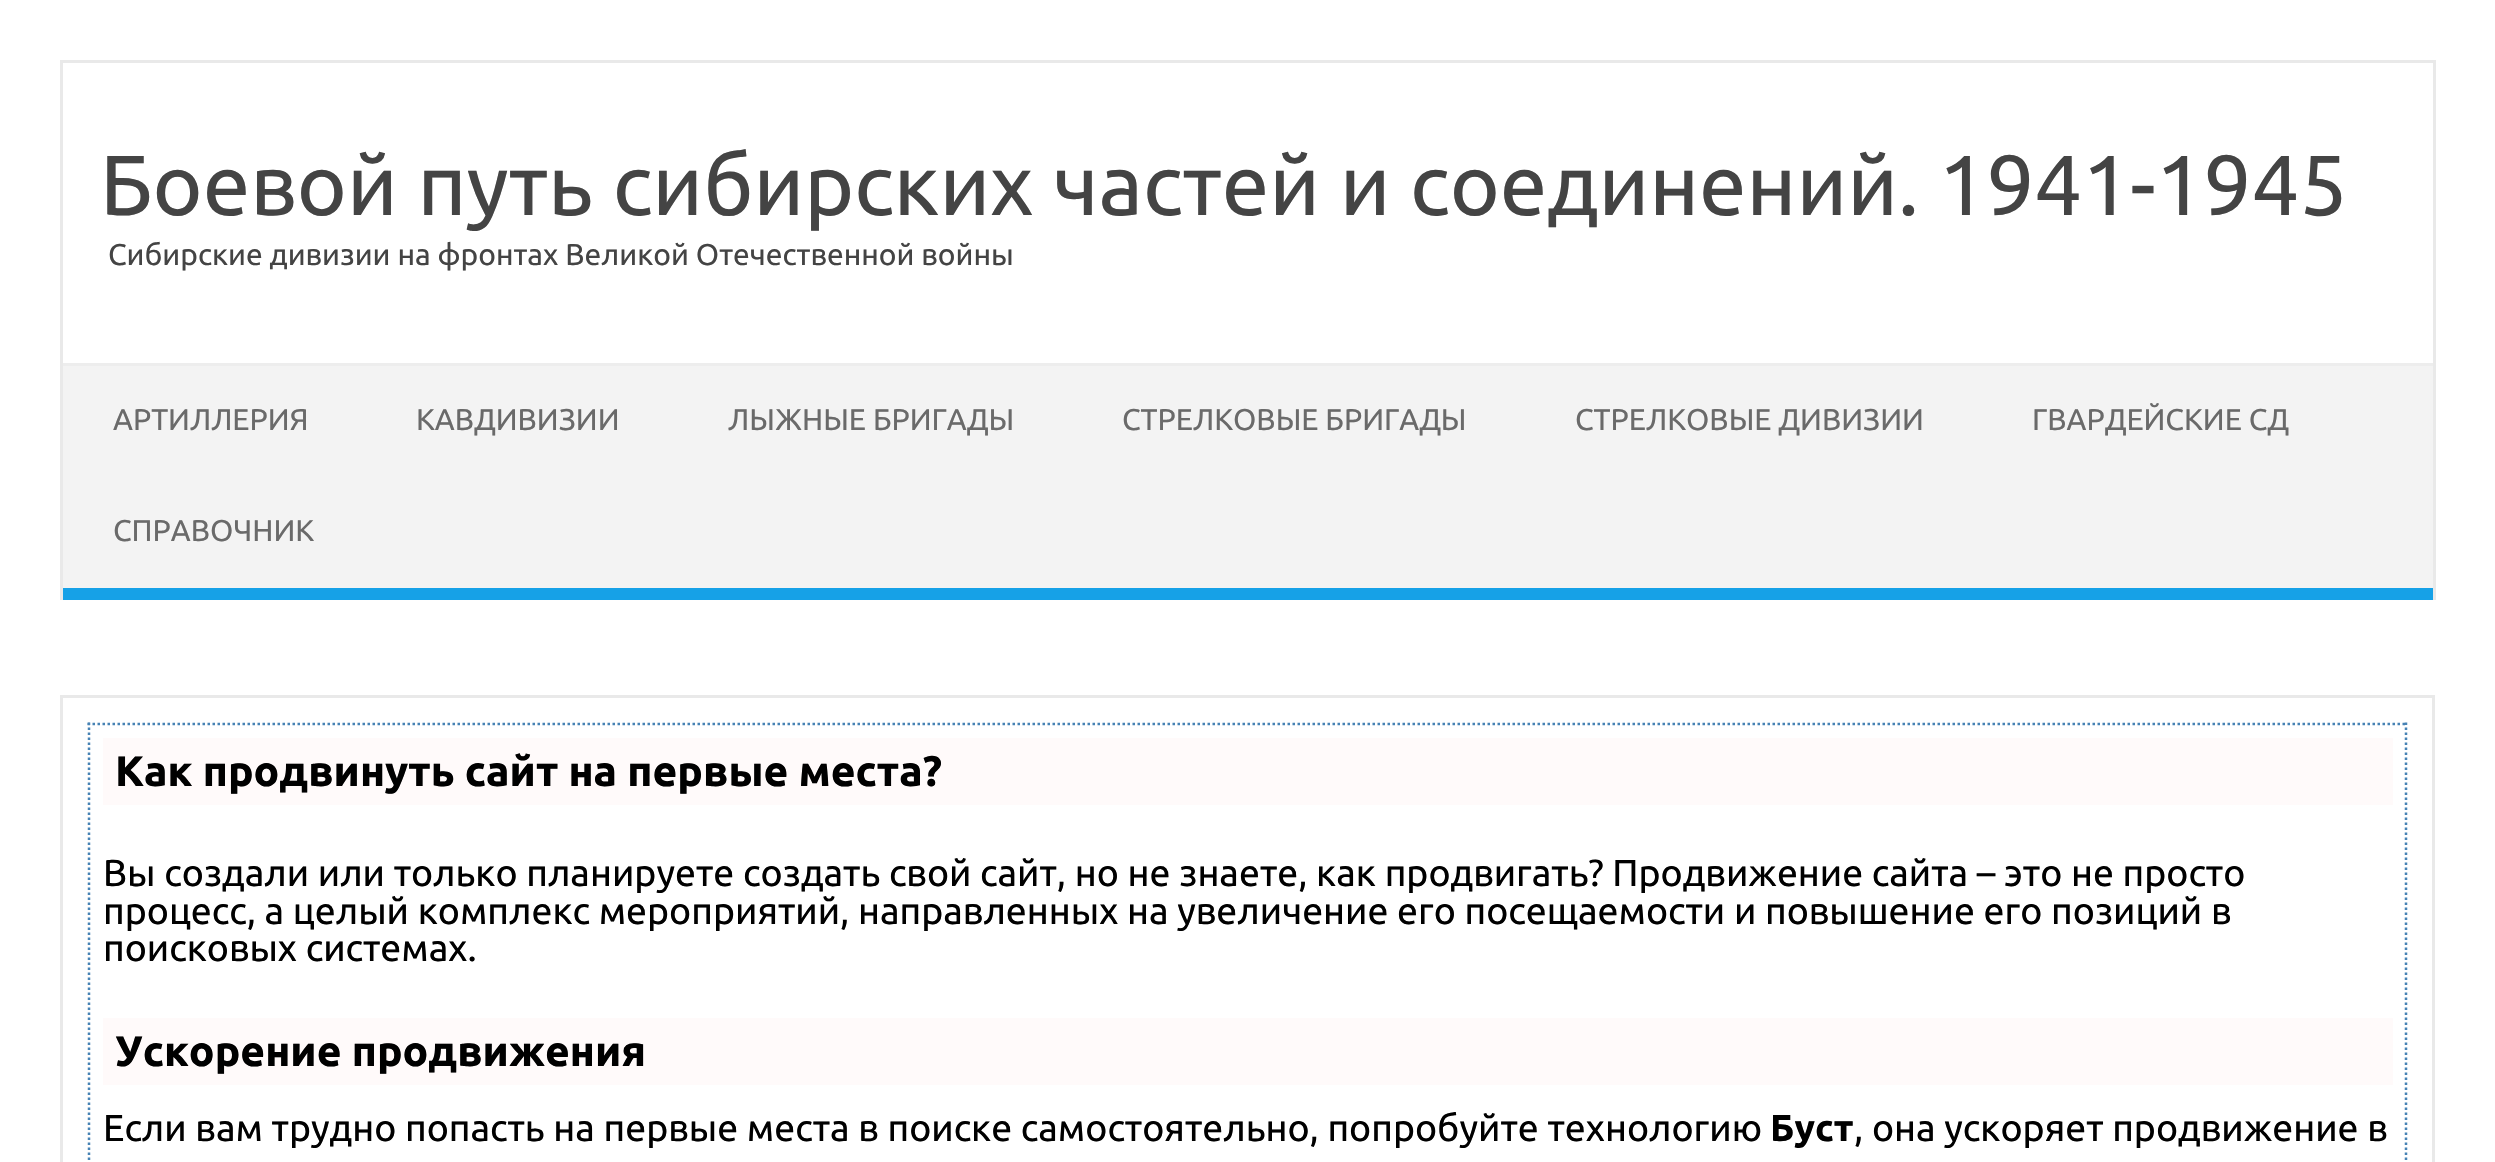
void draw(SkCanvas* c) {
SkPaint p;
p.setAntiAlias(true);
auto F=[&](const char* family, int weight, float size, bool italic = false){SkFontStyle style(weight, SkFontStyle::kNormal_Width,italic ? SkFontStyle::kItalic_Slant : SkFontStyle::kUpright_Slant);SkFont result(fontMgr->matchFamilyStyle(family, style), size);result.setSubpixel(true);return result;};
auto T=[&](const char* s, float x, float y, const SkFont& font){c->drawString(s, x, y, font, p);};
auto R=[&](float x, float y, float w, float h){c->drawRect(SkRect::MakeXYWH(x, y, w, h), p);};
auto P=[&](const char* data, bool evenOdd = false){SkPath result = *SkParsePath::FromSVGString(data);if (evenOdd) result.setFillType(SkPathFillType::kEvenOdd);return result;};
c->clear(0xffffffff);
p.setColor(0xffe9e9e9);
R(60,60,2375,3);
R(2433,60,3,540);
R(60,60,3,540);
auto f1 = F("Ubuntu",400,85);
p.setColor(0xff444444);
T("Боевой путь сибирских частей и соединений. 1941-1945",100,215,f1);
auto f2 = F("Ubuntu",400,30);
T("Сибирские дивизии на фронтах Великой Отечественной войны",108,265,f2);
p.setColor(0xfff3f3f3);
R(63,366,2370,222);
p.setColor(0xffededed);
R(63,363,2370,3);
p.setColor(0xff16a1e7);
R(63,588,2370,12);
p.setColor(0xff6a6a6a);
T("АРТИЛЛЕРИЯ",113,430,f2);
T("КАВДИВИЗИИ",416,430,f2);
T("ЛЫЖНЫЕ БРИГАДЫ",728,430,f2);
T("СТРЕЛКОВЫЕ БРИГАДЫ",1122,430,f2);
T("СТРЕЛКОВЫЕ ДИВИЗИИ",1575,430,f2);
T("ГВАРДЕЙСКИЕ СД",2032,430,f2);
T("СПРАВОЧНИК",113,541,f2);
p.setStroke(true);
p.setStrokeWidth(3);
p.setColor(0xffe9e9e9);
c->drawRect(SkRect::MakeXYWH(61.5,696.5,2372,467),p);
p.setStrokeWidth(2.5);
p.setColor(0xff4682b4);
p.setPathEffect(SkDashPathEffect::Make({{2.5f,2.5f}}, 0));
c->drawPath(P("M87.5 724h2320"),p);
p.setPathEffect(nullptr);
p.setPathEffect(SkDashPathEffect::Make({{2.5f,2.5f}}, 0));
c->drawPath(P("M2406 722.5v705"),p);
p.setPathEffect(nullptr);
p.setPathEffect(SkDashPathEffect::Make({{2.5f,2.5f}}, 0));
c->drawPath(P("M89 722.5v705"),p);
p.setPathEffect(nullptr);
p.setStroke(false);
p.setColor(0xfffffafa);
R(103,738,2290,67);
auto f3 = F("Ubuntu",700,42.5);
p.setColor(0xff000000);
T("Как продвинуть сайт на первые места?",115,786,f3);
auto f4 = F("Ubuntu",400,37.5);
T("Вы создали или только планируете создать свой сайт, но не знаете, как продвигать? Продвижение сайта – это не просто",103,886,f4);
T("процесс, а целый комплекс мероприятий, направленных на увеличение его посещаемости и повышение его позиций в",103,924,f4);
T("поисковых системах.",103,961,f4);
p.setColor(0xfffffafa);
R(103,1018,2290,67);
p.setColor(0xff000000);
T("Ускорение продвижения",115,1066,f3);
T("Если вам трудно попасть на первые места в поиске самостоятельно, попробуйте технологию",103,1141,f4);
auto f5 = F("Ubuntu",700,37.5);
T("Буст",1770,1141,f5);
T(", она ускоряет продвижение в",1854,1141,f4);
}
